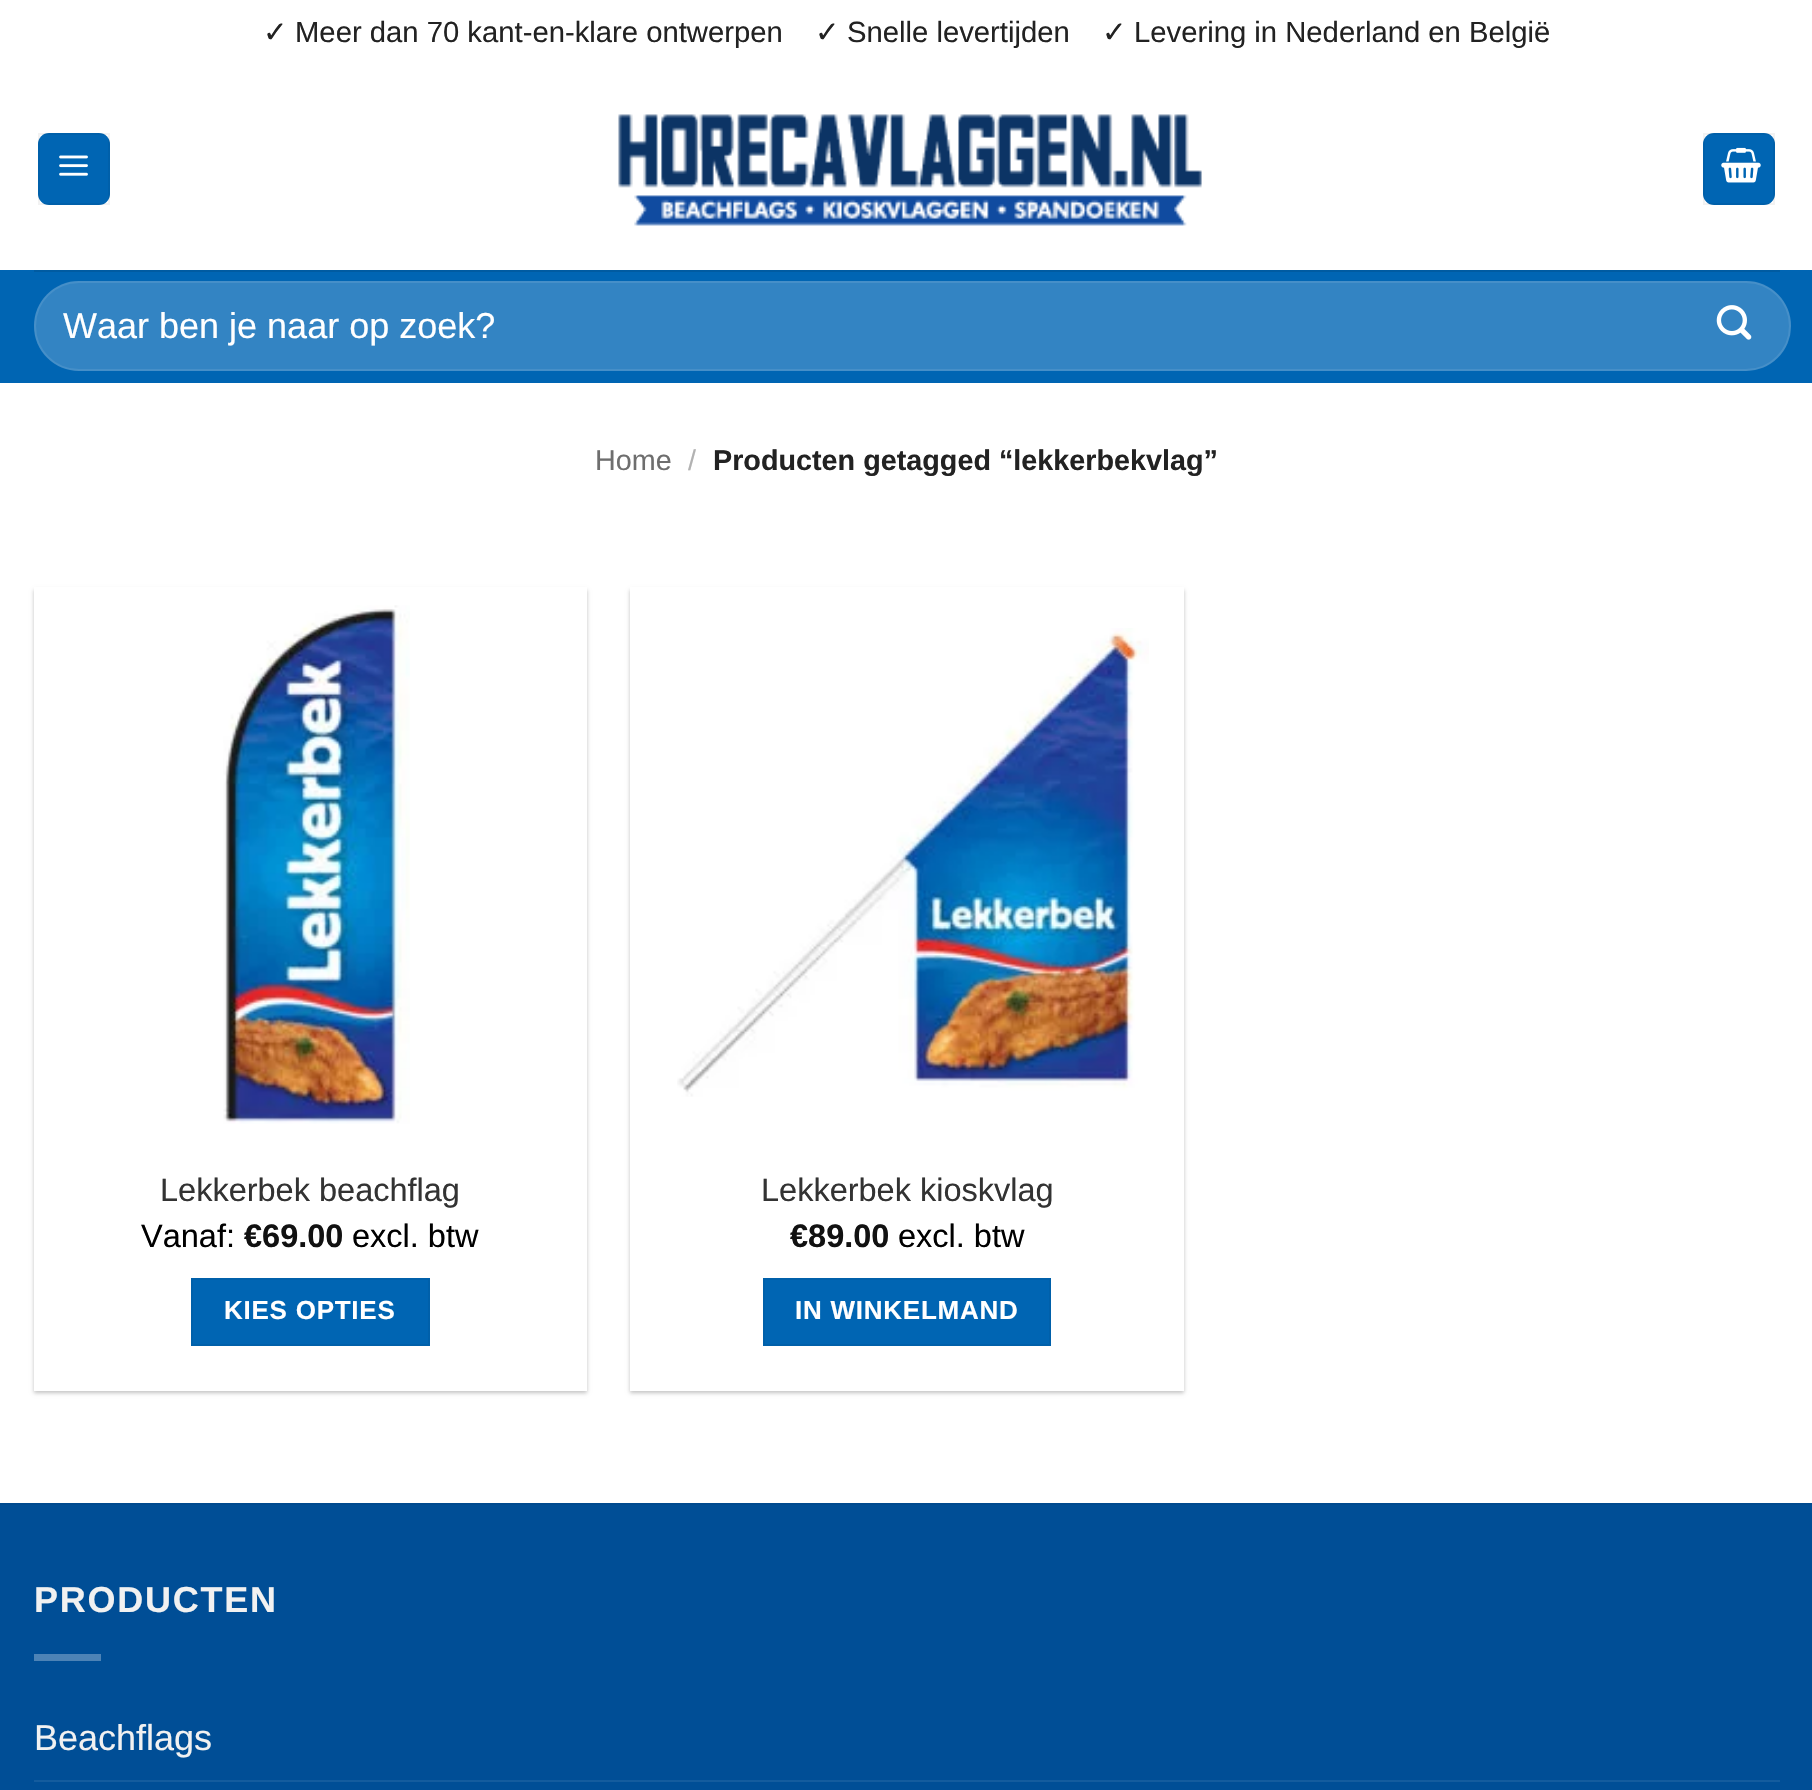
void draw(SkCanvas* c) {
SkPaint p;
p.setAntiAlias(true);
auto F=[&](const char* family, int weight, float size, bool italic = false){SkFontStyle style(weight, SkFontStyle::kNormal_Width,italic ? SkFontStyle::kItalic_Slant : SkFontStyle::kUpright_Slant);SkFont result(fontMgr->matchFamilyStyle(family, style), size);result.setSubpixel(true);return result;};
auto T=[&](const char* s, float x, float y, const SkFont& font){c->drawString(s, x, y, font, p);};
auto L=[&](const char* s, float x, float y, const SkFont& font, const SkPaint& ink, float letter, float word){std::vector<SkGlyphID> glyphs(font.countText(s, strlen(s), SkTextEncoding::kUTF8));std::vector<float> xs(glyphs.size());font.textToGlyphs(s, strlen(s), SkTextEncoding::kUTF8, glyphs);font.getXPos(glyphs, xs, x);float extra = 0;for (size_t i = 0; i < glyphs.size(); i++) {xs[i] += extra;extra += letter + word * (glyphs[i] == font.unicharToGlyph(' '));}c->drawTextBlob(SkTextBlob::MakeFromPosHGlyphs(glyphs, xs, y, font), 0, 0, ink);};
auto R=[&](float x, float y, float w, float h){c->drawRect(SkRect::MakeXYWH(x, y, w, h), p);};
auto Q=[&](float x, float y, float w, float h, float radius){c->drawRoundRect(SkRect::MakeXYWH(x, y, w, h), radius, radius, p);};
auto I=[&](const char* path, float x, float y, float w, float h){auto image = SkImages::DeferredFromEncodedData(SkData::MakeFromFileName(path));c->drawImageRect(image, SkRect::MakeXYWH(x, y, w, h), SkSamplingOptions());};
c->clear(0xffffffff);
auto f1 = F("DejaVu Sans",400,29.25);
p.setColor(0xff222222);
T("✓",263,42,f1);
auto f2 = F("Liberation Sans",400,29.25);
T("Meer dan 70 kant-en-klare ontwerpen",295,42,f2);
T("✓",815,42,f1);
T("Snelle levertijden",847,42,f2);
T("✓",1102,42,f1);
T("Levering in Nederland en België",1134,42,f2);
p.setColor(0xff0065b3);
Q(38,133,72,72,11);
p.setStroke(true);
p.setStrokeWidth(2);
p.setColor(0x0d000000);
c->drawRect(SkRect::MakeXYWH(39,134,70,70),p);
I("1.png",59,155,29,21);
I("2.png",618,114,584,112);
p.setStroke(false);
p.setColor(0xff0065b3);
Q(1703,133,72,72,11);
p.setStroke(true);
p.setColor(0x0d000000);
c->drawRect(SkRect::MakeXYWH(1704,134,70,70),p);
I("3.png",1721,147,40,36);
p.setStroke(false);
p.setColor(0xff0065b3);
R(0,270,1812,113);
p.setColor(0xff005ba1);
R(34,270,1746,2);
p.setColor(0xff3384c3);
Q(34,281,1757,90,45);
p.setStroke(true);
p.setColor(0x17ffffff);
c->drawRoundRect(SkRect::MakeXYWH(35,282,1755,88),44,44,p);
auto f3 = F("Liberation Sans",400,36);
p.setStroke(false);
p.setColor(0xffffffff);
T("Waar ben je naar op zoek?",63,338,f3);
I("4.png",1716,305,36,35);
auto f4 = F("Liberation Sans",400,28.75);
p.setColor(0xff6e6e6e);
T("Home",595,470,f4);
p.setColor(0xffb2b2b2);
T("/",688,470,f4);
auto f5 = F("Liberation Sans",700,28.75);
p.setColor(0xff222222);
T("Producten getagged “lekkerbekvlag”",713,470,f5);
p.setColor(0x3d000000);
p.setMaskFilter(SkMaskFilter::MakeBlur(kNormal_SkBlurStyle, 2));
c->drawRect(SkRect::MakeXYWH(34,590,553,803),p);
p.setMaskFilter(nullptr);
p.setColor(0xffffffff);
R(34,587,553,804);
I("5.png",223,605,187,519);
auto f6 = F("Liberation Sans",400,32.5);
p.setColor(0xff333333);
T("Lekkerbek beachflag",160,1201,f6);
p.setColor(0xff000000);
T("Vanaf:",141,1247,f6);
auto f7 = F("Liberation Sans",700,32.5);
p.setColor(0xff111111);
T("€69.00",244,1247,f7);
p.setColor(0xff000000);
T("excl. btw",352,1247,f6);
p.setColor(0xff0065b3);
c->drawRect(SkRect::MakeXYWH(192,1279,237,66),p);
p.setStroke(true);
p.setColor(0xff0060aa);
c->drawRect(SkRect::MakeXYWH(192,1279,237,66),p);
auto f8 = F("Liberation Sans",700,26);
p.setStroke(false);
p.setColor(0xffffffff);
L("KIES OPTIES",224,1319,f8,p,.75,0);
p.setColor(0x3d000000);
p.setMaskFilter(SkMaskFilter::MakeBlur(kNormal_SkBlurStyle, 2));
c->drawRect(SkRect::MakeXYWH(630,590,554,803),p);
p.setMaskFilter(nullptr);
p.setColor(0xffffffff);
R(630,587,554,804);
I("6.png",677,628,472,469);
p.setColor(0xff333333);
T("Lekkerbek kioskvlag",761,1201,f6);
p.setColor(0xff111111);
T("€89.00",790,1247,f7);
p.setColor(0xff000000);
T("excl. btw",898,1247,f6);
p.setColor(0xff0065b3);
c->drawRect(SkRect::MakeXYWH(764,1279,286,66),p);
p.setStroke(true);
p.setColor(0xff0060aa);
c->drawRect(SkRect::MakeXYWH(764,1279,286,66),p);
p.setStroke(false);
p.setColor(0xffffffff);
L("IN WINKELMAND",795,1319,f8,p,.75,0);
p.setColor(0xff004e96);
R(0,1505,1812,285);
p.setColor(0xff004a8f);
R(0,1503,1812,2);
auto f9 = F("Liberation Sans",700,36);
p.setColor(0xfff1f1f1);
L("PRODUCTEN",34,1612,f9,p,1.75,0);
p.setColor(0xff4d83b6);
R(34,1654,67,7);
p.setColor(0xfff1f1f1);
T("Beachflags",34,1750,f3);
p.setColor(0xff145c9e);
R(34,1780,1746,2);
}
